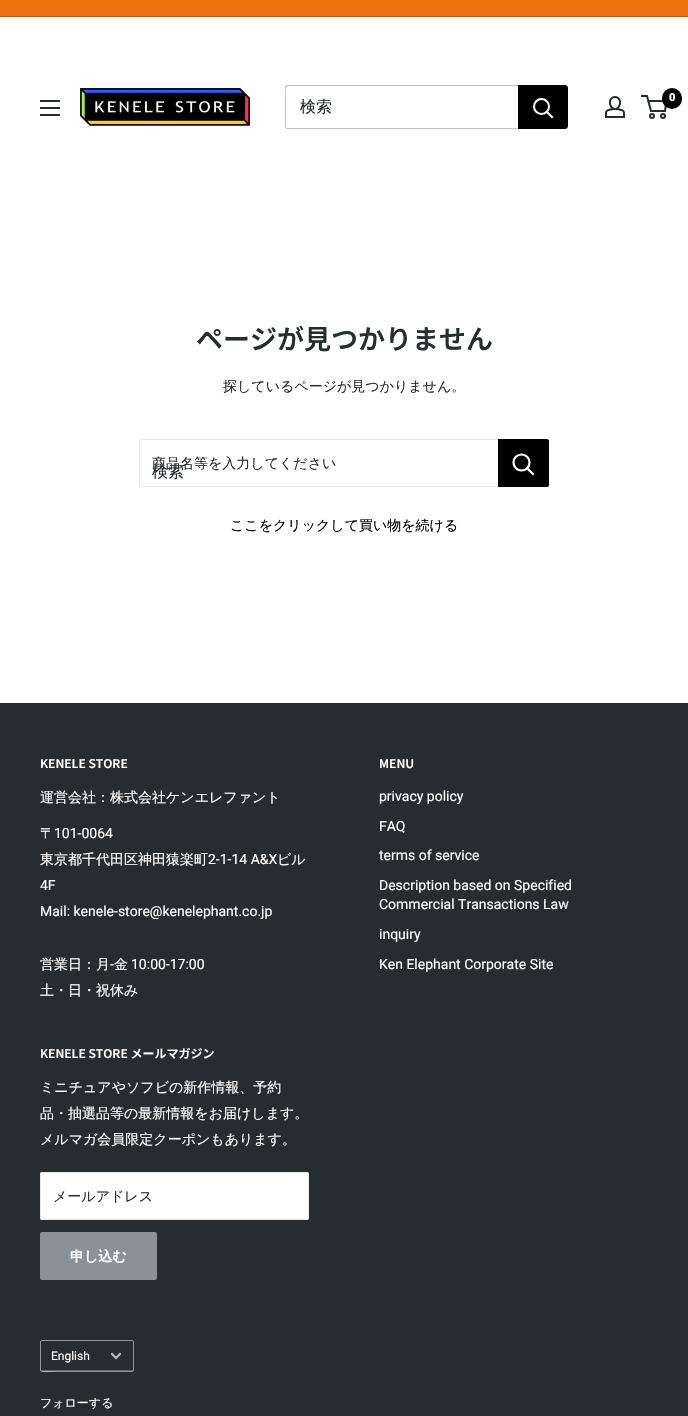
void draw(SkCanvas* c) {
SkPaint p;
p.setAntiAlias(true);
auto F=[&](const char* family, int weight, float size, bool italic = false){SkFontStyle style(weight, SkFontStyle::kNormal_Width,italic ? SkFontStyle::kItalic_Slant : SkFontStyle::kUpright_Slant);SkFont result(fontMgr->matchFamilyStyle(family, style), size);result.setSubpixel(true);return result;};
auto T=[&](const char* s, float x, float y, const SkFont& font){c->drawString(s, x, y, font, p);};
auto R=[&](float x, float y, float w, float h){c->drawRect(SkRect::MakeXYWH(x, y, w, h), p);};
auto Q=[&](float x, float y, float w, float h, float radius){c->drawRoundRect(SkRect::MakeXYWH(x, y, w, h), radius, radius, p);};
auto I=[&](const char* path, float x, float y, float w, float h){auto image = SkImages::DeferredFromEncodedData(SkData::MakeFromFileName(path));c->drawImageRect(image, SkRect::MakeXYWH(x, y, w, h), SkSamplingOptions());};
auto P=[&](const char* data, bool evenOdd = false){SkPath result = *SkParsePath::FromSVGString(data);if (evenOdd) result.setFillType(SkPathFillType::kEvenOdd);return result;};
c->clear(0xffffffff);
p.setColor(0xffed720f);
R(0,0,688,16);
p.setColor(0xffaf5d30);
R(0,16,688,1);
I("1.png",40,100,20,16);
I("2.png",80,88,170,38);
p.setColor(0xffbcc0d8);
c->drawPath(P("M286 128c0 1 1 1 2 1h277c2 0 3-1 3-3v-38c0-1 0-2-1-2v33c0 2 2 9-3 9z"),p);
c->drawPath(P("M289 86h278c0-1-1-1-2-1h-277c-2 0-3 1-3 3v38c0 1 0 2 1 2v-33c0-2-2-9 3-9z"),p);
auto f1 = F("WenQuanYi Zen Hei",500,16);
p.setColor(0xff272c30);
T("検索",300,112,f1);
p.setColor(0xff000000);
c->drawPath(P("M518 85h47c1.5 0 3 1.5 3 3v38c0 1.5-1.5 3-3 3h-47z"),p);
p.setStroke(true);
p.setStrokeWidth(2);
p.setStrokeCap(SkPaint::kSquare_Cap);
p.setColor(0xffffffff);
c->drawPath(P("M552 117l-5-5"),p);
p.setStrokeCap(SkPaint::kButt_Cap);
c->drawCircle(541.5,106.5,7.5,p);
I("3.png",605,96,20,22);
p.setColor(0xff272c30);
c->drawCircle(652,116,2,p);
c->drawCircle(663,116,2,p);
c->drawPath(P("M648.5 101h18l-1.5 10h-14l-4-15h-6"),p);
p.setStroke(false);
p.setColor(0xff000000);
Q(662,88,20,21,10);
auto f2 = F("Roboto",900,11);
p.setColor(0xffffffff);
T("0",669,101,f2);
auto f3 = F("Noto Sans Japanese",600,27);
p.setColor(0xff272c30);
T("ページが見つかりません",196,349,f3);
auto f4 = F("WenQuanYi Zen Hei",500,14);
T("探しているページが見つかりません。",223,391,f4);
T("検索",152,477,f1);
T("商品名等を入力してください",152,468,f4);
p.setColor(0xfffcfdfd);
c->drawPath(P("M141 441h357v-1h-357c-1 0-1 1-1 2c0-1 0-1 1-1z"),p);
p.setColor(0xffe4e9eb);
R(140,439,358,1);
R(140,486,358,1);
R(139,440,1,46);
p.setColor(0xff000000);
c->drawPath(P("M498 439h49c1 0 2 1 2 2v44c0 1-1 2-2 2h-49z"),p);
p.setStroke(true);
p.setStrokeWidth(2.2);
p.setStrokeCap(SkPaint::kSquare_Cap);
p.setColor(0xffffffff);
c->drawPath(P("M533 474l-5.5-5.5"),p);
p.setStrokeCap(SkPaint::kButt_Cap);
c->drawCircle(521.5,462.5,8,p);
p.setStroke(false);
p.setColor(0xff000000);
T("ここをクリックして買い物を続ける",230,530,f4);
p.setColor(0xff272c30);
R(0,703,688,713);
auto f5 = F("Noto Sans Japanese",600,12);
p.setColor(0xffffffff);
T("KENELE STORE",40,768,f5);
T("運営会社：株式会社ケンエレファント",40,802,f4);
T("〒",40,838,f4);
auto f6 = F("Roboto",400,14);
T("101-0064",54,838,f6);
T("東京都千代田区神田猿楽町",40,864,f4);
T("2-1-14 A&X",208,864,f6);
T("ビル",277,864,f4);
T("4F",40,890,f6);
T("Mail: kenele-store@kenelephant.co.jp",40,916,f6);
T("営業日：月",40,969,f4);
T("-",110,969,f6);
T("金",114,969,f4);
T("10:00-17:00",131,969,f6);
T("土・日・祝休み",40,995,f4);
T("MENU",379,768,f5);
T("privacy policy",379,801,f6);
T("FAQ",379,831,f6);
T("terms of service",379,860,f6);
T("Description based on Specified",379,890,f6);
T("Commercial Transactions Law",379,909,f6);
T("inquiry",379,939,f6);
T("Ken Elephant Corporate Site",379,969,f6);
T("KENELE STORE メールマガジン",40,1058,f5);
T("ミニチュアやソフビの新作情報、予約",40,1092,f4);
T("品・抽選品等の最新情報をお届けします。",40,1118,f4);
T("メルマガ会員限定クーポンもあります。",40,1144,f4);
Q(40,1172,269,48,2);
p.setColor(0xfffcfdfd);
c->drawPath(P("M42 1174h265c1 0 1 0 1 1c0-1 0-2-1-2h-266v2c0-1 0-1 1-1z"),p);
p.setStroke(true);
p.setStrokeWidth(1);
p.setColor(0xffe4e9eb);
c->drawRoundRect(SkRect::MakeXYWH(40.5,1172.5,268,47),1.5,1.5,p);
p.setStroke(false);
p.setColor(0xff272c30);
T("メールアドレス",53,1201,f4);
p.setColor(0xff8a9297);
Q(40,1232,117,48,2);
auto f7 = F("WenQuanYi Zen Hei",700,14);
p.setColor(0xffffffff);
T("申し込む",70,1261,f7);
p.setColor(0xff64686b);
c->drawPath(P("M41 1369c0 6 14 2 16 2h75c1 0 1-1 1-2c0 1 0 1-1 1h-90c-1 0-1 0-1-1z"),p);
p.setStroke(true);
p.setColor(0x80ffffff);
c->drawRoundRect(SkRect::MakeXYWH(40.5,1340.5,93,31),1.5,1.5,p);
auto f8 = F("Roboto",400,12);
p.setStroke(false);
p.setColor(0xffffffff);
T("English",51,1360,f8);
p.setStroke(true);
p.setStrokeWidth(2);
p.setStrokeCap(SkPaint::kSquare_Cap);
p.setColor(0xffbec0c1);
c->drawPath(P("M120 1354l-4 4l-4-4"),p);
auto f9 = F("WenQuanYi Zen Hei",500,12);
p.setStroke(false);
p.setColor(0xffffffff);
T("フォローする",40,1407,f9);
}
